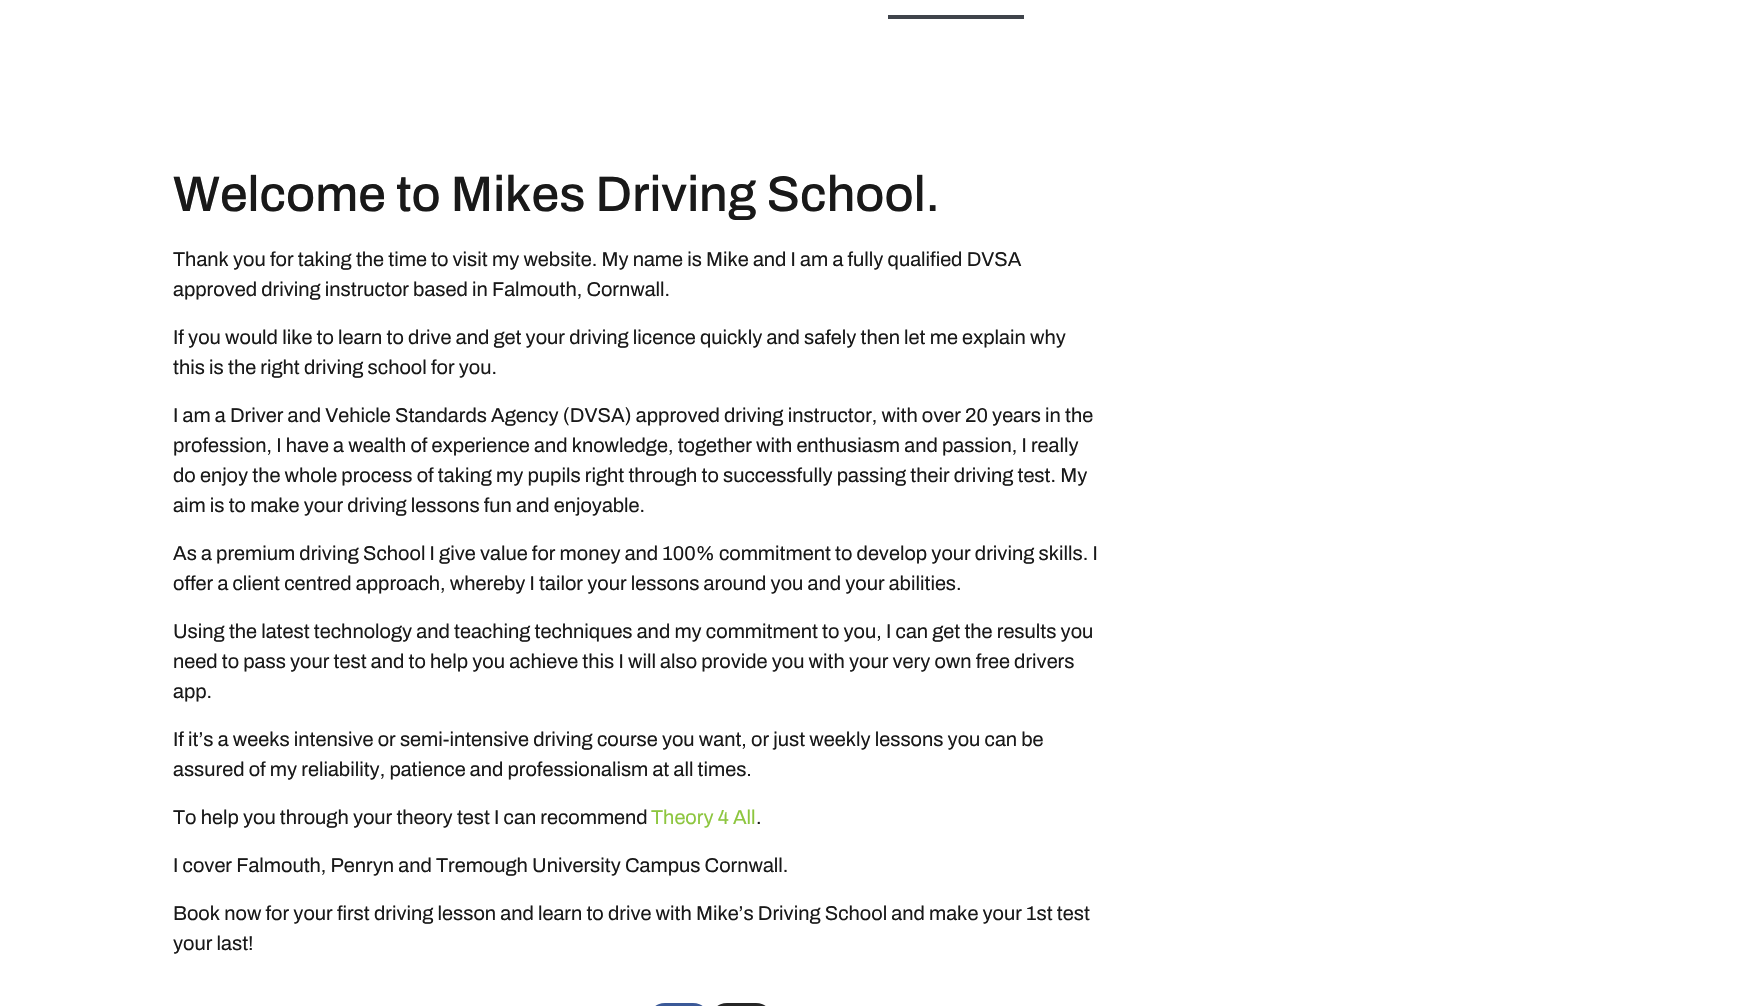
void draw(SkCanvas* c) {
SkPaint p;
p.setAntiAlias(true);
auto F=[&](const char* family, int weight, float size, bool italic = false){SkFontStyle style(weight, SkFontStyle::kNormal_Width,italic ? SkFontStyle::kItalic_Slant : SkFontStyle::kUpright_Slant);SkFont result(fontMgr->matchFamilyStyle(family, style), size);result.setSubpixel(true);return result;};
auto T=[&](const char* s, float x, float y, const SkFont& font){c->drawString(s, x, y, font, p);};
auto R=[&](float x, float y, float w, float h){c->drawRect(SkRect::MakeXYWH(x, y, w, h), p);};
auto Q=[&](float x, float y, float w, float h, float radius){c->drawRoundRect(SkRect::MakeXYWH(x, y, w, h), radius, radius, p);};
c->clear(0xffffffff);
p.setColor(0xff3f444b);
R(888,15,136,4);
auto f1 = F("Archivo",500,50);
p.setColor(0xff191919);
T("Welcome to Mikes Driving School.",173,211,f1);
auto f2 = F("Archivo",400,20);
T("Thank you for taking the time to visit my website. My name is Mike and I am a fully qualified DVSA",173,266,f2);
T("approved driving instructor based in Falmouth, Cornwall.",173,296,f2);
T("If you would like to learn to drive and get your driving licence quickly and safely then let me explain why",173,344,f2);
T("this is the right driving school for you.",173,374,f2);
T("I am a Driver and Vehicle Standards Agency (DVSA) approved driving instructor, with over 20 years in the",173,422,f2);
T("profession, I have a wealth of experience and knowledge, together with enthusiasm and passion, I really",173,452,f2);
T("do enjoy the whole process of taking my pupils right through to successfully passing their driving test. My",173,482,f2);
T("aim is to make your driving lessons fun and enjoyable.",173,512,f2);
T("As a premium driving School I give value for money and 100% commitment to develop your driving skills. I",173,560,f2);
T("offer a client centred approach, whereby I tailor your lessons around you and your abilities.",173,590,f2);
T("Using the latest technology and teaching techniques and my commitment to you, I can get the results you",173,638,f2);
T("need to pass your test and to help you achieve this I will also provide you with your very own free drivers",173,668,f2);
T("app.",173,698,f2);
T("If it’s a weeks intensive or semi-intensive driving course you want, or just weekly lessons you can be",173,746,f2);
T("assured of my reliability, patience and professionalism at all times.",173,776,f2);
T("To help you through your theory test I can recommend",173,824,f2);
p.setColor(0xff8dc63f);
T("Theory 4 All",651,824,f2);
p.setColor(0xff191919);
T(".",756,824,f2);
T("I cover Falmouth, Penryn and Tremough University Campus Cornwall.",173,872,f2);
T("Book now for your first driving lesson and learn to drive with Mike’s Driving School and make your 1st test",173,920,f2);
T("your last!",173,950,f2);
p.setColor(0xff3b5998);
Q(648,1003,62,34,31);
p.setColor(0xff262626);
Q(710,1003,63,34,31);
}
